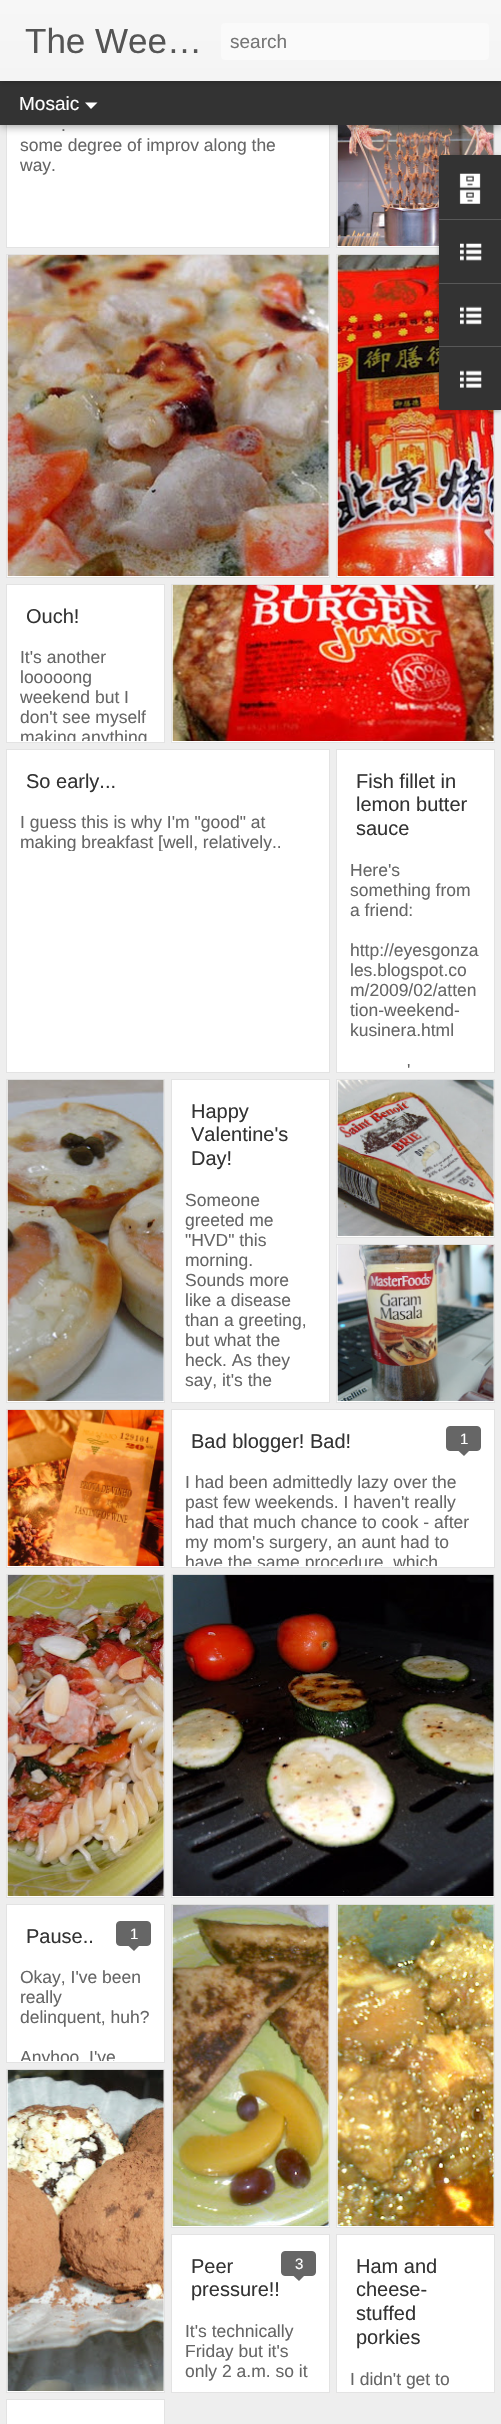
void draw(SkCanvas* c) {
SkPaint p;
p.setAntiAlias(true);
auto F=[&](const char* family, int weight, float size, bool italic = false){SkFontStyle style(weight, SkFontStyle::kNormal_Width,italic ? SkFontStyle::kItalic_Slant : SkFontStyle::kUpright_Slant);SkFont result(fontMgr->matchFamilyStyle(family, style), size);result.setSubpixel(true);return result;};
auto T=[&](const char* s, float x, float y, const SkFont& font){c->drawString(s, x, y, font, p);};
auto R=[&](float x, float y, float w, float h){c->drawRect(SkRect::MakeXYWH(x, y, w, h), p);};
auto Q=[&](float x, float y, float w, float h, float radius){c->drawRoundRect(SkRect::MakeXYWH(x, y, w, h), radius, radius, p);};
auto I=[&](const char* path, float x, float y, float w, float h){auto image = SkImages::DeferredFromEncodedData(SkData::MakeFromFileName(path));c->drawImageRect(image, SkRect::MakeXYWH(x, y, w, h), SkSamplingOptions());};
auto P=[&](const char* data, bool evenOdd = false){SkPath result = *SkParsePath::FromSVGString(data);if (evenOdd) result.setFillType(SkPathFillType::kEvenOdd);return result;};
c->clear(0xffeeeeee);
p.setColor(0xffffffff);
R(7,125,322,122);
p.setStroke(true);
p.setStrokeWidth(1);
p.setColor(0xffe3e3e3);
c->drawRect(SkRect::MakeXYWH(6.5,-.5,323,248),p);
p.setStroke(false);
p.setColor(0xffffffff);
R(337,125,157,122);
p.setStroke(true);
p.setColor(0xffe3e3e3);
c->drawRect(SkRect::MakeXYWH(336.5,89.5,158,158),p);
I("1.png",337,125,157,121);
p.setStroke(false);
p.setColor(0x80000000);
p.setMaskFilter(SkMaskFilter::MakeBlur(kNormal_SkBlurStyle, 5));
c->drawRect(SkRect::MakeXYWH(0,81,501,44),p);
p.setMaskFilter(nullptr);
p.setColor(0xff333333);
R(0,81,501,44);
p.setColor(0x4d000000);
p.setMaskFilter(SkMaskFilter::MakeBlur(kNormal_SkBlurStyle, 3));
c->drawRect(SkRect::MakeXYWH(0,0,501,81),p);
p.setMaskFilter(nullptr);
{
const SkColor colors[] = {0xfff7f7f7,0xfff4f4f4};
const float stops[] = {0,1};
const SkPoint ends[] = {{0,0}, {0,81}};
p.setShader(SkGradientShader::MakeLinear(ends, colors, stops, 2, SkTileMode::kClamp));
p.setAlpha(255);
}
R(0,0,501,81);
auto f1 = F("Liberation Sans",400,35);
p.setShader(nullptr);
p.setColor(0xff555555);
T("The Wee…",25,53,f1);
p.setColor(0xfffafafa);
Q(221,23,268,37,4);
auto f2 = F("Liberation Sans",400,19);
p.setColor(0xff757575);
T("search",230,48,f2);
p.setColor(0xffffffff);
T("Mosaic",19,110,f2);
c->drawPath(P("M85 102.5h12.5l-6.5 6.5z"),p);
auto f3 = F("Liberation Sans",400,17.5);
p.setColor(0xff666666);
T(".",61,131,f3);
T("some degree of improv along the",20,151,f3);
T("way.",20,171,f3);
p.setColor(0xffffffff);
c->drawRect(SkRect::MakeXYWH(6.5,254.5,323,323),p);
p.setStroke(true);
p.setColor(0xffe3e3e3);
c->drawRect(SkRect::MakeXYWH(6.5,254.5,323,323),p);
I("2.png",7,254,322,322);
p.setStroke(false);
p.setColor(0xffffffff);
c->drawRect(SkRect::MakeXYWH(336.5,254.5,158,323),p);
p.setStroke(true);
p.setColor(0xffe3e3e3);
c->drawRect(SkRect::MakeXYWH(336.5,254.5,158,323),p);
I("3.png",337,254,157,322);
p.setStroke(false);
p.setColor(0xffffffff);
c->drawRect(SkRect::MakeXYWH(6.5,584.5,158,158),p);
p.setStroke(true);
p.setColor(0xffe3e3e3);
c->drawRect(SkRect::MakeXYWH(6.5,584.5,158,158),p);
auto f4 = F("Liberation Sans",400,20);
p.setStroke(false);
p.setColor(0xff333333);
T("Ouch!",26,623,f4);
p.setColor(0xff666666);
T("It's another",20,663,f3);
T("looooong",20,683,f3);
T("weekend but I",20,703,f3);
T("don't see myself",20,723,f3);
c->save();
c->clipRect(SkRect::MakeXYWH(20,646,131,95));
T("making anything",20,743,f3);
c->restore();
p.setColor(0xffffffff);
c->drawRect(SkRect::MakeXYWH(171.5,584.5,323,158),p);
p.setStroke(true);
p.setColor(0xffe3e3e3);
c->drawRect(SkRect::MakeXYWH(171.5,584.5,323,158),p);
I("4.png",172,584,322,157);
p.setStroke(false);
p.setColor(0xffffffff);
c->drawRect(SkRect::MakeXYWH(6.5,749.5,323,323),p);
p.setStroke(true);
p.setColor(0xffe3e3e3);
c->drawRect(SkRect::MakeXYWH(6.5,749.5,323,323),p);
p.setStroke(false);
p.setColor(0xff333333);
T("So early...",26,788,f4);
p.setColor(0xff666666);
T("I guess this is why I'm \"good\" at",20,828,f3);
c->save();
c->clipRect(SkRect::MakeXYWH(20,811,296,40));
T("making breakfast [well, relatively..",20,848,f3);
c->restore();
p.setColor(0xffffffff);
c->drawRect(SkRect::MakeXYWH(336.5,749.5,158,323),p);
p.setStroke(true);
p.setColor(0xffe3e3e3);
c->drawRect(SkRect::MakeXYWH(336.5,749.5,158,323),p);
p.setStroke(false);
p.setColor(0xff333333);
T("Fish fillet in",356,788,f4);
T("lemon butter",356,811,f4);
T("sauce",356,835,f4);
p.setColor(0xff666666);
T("Here's",350,876,f3);
T("something from",350,896,f3);
T("a friend:",350,916,f3);
T("http://eyesgonza",350,956,f3);
T("les.blogspot.co",350,976,f3);
T("m/2009/02/atten",350,996,f3);
T("tion-weekend-",350,1016,f3);
T("kusinera.html",350,1036,f3);
T("'",407,1076,f3);
p.setColor(0xffffffff);
c->drawRect(SkRect::MakeXYWH(6.5,1079.5,158,323),p);
p.setStroke(true);
p.setColor(0xffe3e3e3);
c->drawRect(SkRect::MakeXYWH(6.5,1079.5,158,323),p);
I("5.png",7,1079,157,322);
p.setStroke(false);
p.setColor(0xffffffff);
c->drawRect(SkRect::MakeXYWH(171.5,1079.5,158,323),p);
p.setStroke(true);
p.setColor(0xffe3e3e3);
c->drawRect(SkRect::MakeXYWH(171.5,1079.5,158,323),p);
p.setStroke(false);
p.setColor(0xff333333);
T("Happy",191,1118,f4);
T("Valentine's",191,1141,f4);
T("Day!",191,1165,f4);
p.setColor(0xff666666);
T("Someone",185,1206,f3);
T("greeted me",185,1226,f3);
T("\"HVD\" this",185,1246,f3);
T("morning.",185,1266,f3);
T("Sounds more",185,1286,f3);
T("like a disease",185,1306,f3);
T("than a greeting,",185,1326,f3);
T("but what the",185,1346,f3);
T("heck. As they",185,1366,f3);
T("say, it's the",185,1386,f3);
p.setColor(0xffffffff);
c->drawRect(SkRect::MakeXYWH(336.5,1079.5,158,158),p);
p.setStroke(true);
p.setColor(0xffe3e3e3);
c->drawRect(SkRect::MakeXYWH(336.5,1079.5,158,158),p);
I("6.png",337,1079,157,157);
p.setStroke(false);
p.setColor(0xffffffff);
c->drawRect(SkRect::MakeXYWH(336.5,1244.5,158,158),p);
p.setStroke(true);
p.setColor(0xffe3e3e3);
c->drawRect(SkRect::MakeXYWH(336.5,1244.5,158,158),p);
I("7.png",337,1244,157,157);
p.setStroke(false);
p.setColor(0xffffffff);
c->drawRect(SkRect::MakeXYWH(6.5,1409.5,158,158),p);
p.setStroke(true);
p.setColor(0xffe3e3e3);
c->drawRect(SkRect::MakeXYWH(6.5,1409.5,158,158),p);
I("8.png",7,1409,157,157);
p.setStroke(false);
p.setColor(0xffffffff);
c->drawRect(SkRect::MakeXYWH(171.5,1409.5,323,158),p);
p.setStroke(true);
p.setColor(0xffe3e3e3);
c->drawRect(SkRect::MakeXYWH(171.5,1409.5,323,158),p);
p.setStroke(false);
p.setColor(0xff333333);
T("Bad blogger! Bad!",191,1448,f4);
p.setColor(0xff666666);
c->drawRoundRect(SkRect::MakeXYWH(446.5,1426.5,34,24),3.5,3.5,p);
p.setStroke(true);
c->drawRoundRect(SkRect::MakeXYWH(446.5,1426.5,34,24),3.5,3.5,p);
auto f5 = F("Liberation Sans",400,15);
p.setStroke(false);
p.setColor(0xffffffff);
T("1",460,1444,f5);
p.setColor(0xff666666);
c->drawPath(P("M457.5 1450h12.5l-6 6z"),p);
T("I had been admittedly lazy over the",185,1488,f3);
T("past few weekends. I haven't really",185,1508,f3);
T("had that much chance to cook - after",185,1528,f3);
T("my mom's surgery, an aunt had to",185,1548,f3);
c->save();
c->clipRect(SkRect::MakeXYWH(185,1471,296,95));
T("have the same procedure, which",185,1568,f3);
c->restore();
p.setColor(0xffffffff);
c->drawRect(SkRect::MakeXYWH(6.5,1574.5,158,323),p);
p.setStroke(true);
p.setColor(0xffe3e3e3);
c->drawRect(SkRect::MakeXYWH(6.5,1574.5,158,323),p);
I("9.png",7,1574,157,322);
p.setStroke(false);
p.setColor(0xffffffff);
c->drawRect(SkRect::MakeXYWH(171.5,1574.5,323,323),p);
p.setStroke(true);
p.setColor(0xffe3e3e3);
c->drawRect(SkRect::MakeXYWH(171.5,1574.5,323,323),p);
I("10.png",172,1574,322,322);
p.setStroke(false);
p.setColor(0xffffffff);
c->drawRect(SkRect::MakeXYWH(6.5,1904.5,158,158),p);
p.setStroke(true);
p.setColor(0xffe3e3e3);
c->drawRect(SkRect::MakeXYWH(6.5,1904.5,158,158),p);
p.setStroke(false);
p.setColor(0xff333333);
T("Pause..",26,1943,f4);
p.setColor(0xff666666);
c->drawRoundRect(SkRect::MakeXYWH(116.5,1921.5,34,24),3.5,3.5,p);
p.setStroke(true);
c->drawRoundRect(SkRect::MakeXYWH(116.5,1921.5,34,24),3.5,3.5,p);
p.setStroke(false);
p.setColor(0xffffffff);
T("1",130,1939,f5);
p.setColor(0xff666666);
c->drawPath(P("M127.5 1945h12.5l-6 6z"),p);
T("Okay, I've been",20,1983,f3);
T("really",20,2003,f3);
T("delinquent, huh?",20,2023,f3);
c->save();
c->clipRect(SkRect::MakeXYWH(20,1966,131,95));
T("Anyhoo, I've",20,2063,f3);
c->restore();
p.setColor(0xffffffff);
c->drawRect(SkRect::MakeXYWH(171.5,1904.5,158,323),p);
p.setStroke(true);
p.setColor(0xffe3e3e3);
c->drawRect(SkRect::MakeXYWH(171.5,1904.5,158,323),p);
I("11.png",172,1904,157,322);
p.setStroke(false);
p.setColor(0xffffffff);
c->drawRect(SkRect::MakeXYWH(336.5,1904.5,158,323),p);
p.setStroke(true);
p.setColor(0xffe3e3e3);
c->drawRect(SkRect::MakeXYWH(336.5,1904.5,158,323),p);
I("12.png",337,1904,157,322);
p.setStroke(false);
p.setColor(0xffffffff);
c->drawRect(SkRect::MakeXYWH(6.5,2069.5,158,323),p);
p.setStroke(true);
p.setColor(0xffe3e3e3);
c->drawRect(SkRect::MakeXYWH(6.5,2069.5,158,323),p);
I("13.png",7,2069,157,322);
p.setStroke(false);
p.setColor(0xffffffff);
c->drawRect(SkRect::MakeXYWH(171.5,2234.5,158,158),p);
p.setStroke(true);
p.setColor(0xffe3e3e3);
c->drawRect(SkRect::MakeXYWH(171.5,2234.5,158,158),p);
p.setStroke(false);
p.setColor(0xff333333);
T("Peer",191,2273,f4);
T("pressure!!",191,2296,f4);
p.setColor(0xff666666);
c->drawRoundRect(SkRect::MakeXYWH(281.5,2251.5,34,24),3.5,3.5,p);
p.setStroke(true);
c->drawRoundRect(SkRect::MakeXYWH(281.5,2251.5,34,24),3.5,3.5,p);
p.setStroke(false);
p.setColor(0xffffffff);
T("3",295,2269,f5);
p.setColor(0xff666666);
c->drawPath(P("M292.5 2275h12.5l-6 6z"),p);
T("It's technically",185,2337,f3);
T("Friday but it's",185,2357,f3);
T("only 2 a.m. so it",185,2377,f3);
p.setColor(0xffffffff);
c->drawRect(SkRect::MakeXYWH(336.5,2234.5,158,158),p);
p.setStroke(true);
p.setColor(0xffe3e3e3);
c->drawRect(SkRect::MakeXYWH(336.5,2234.5,158,158),p);
p.setStroke(false);
p.setColor(0xff333333);
T("Ham and",356,2273,f4);
T("cheese-",356,2296,f4);
T("stuffed",356,2320,f4);
T("porkies",356,2344,f4);
p.setColor(0xff666666);
T("I didn't get to",350,2385,f3);
p.setColor(0xffffffff);
c->drawRect(SkRect::MakeXYWH(6.5,2399.5,158,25),p);
p.setStroke(true);
p.setColor(0xffe3e3e3);
c->drawRect(SkRect::MakeXYWH(6.5,2399.5,158,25),p);
p.setStroke(false);
p.setColor(0x4d000000);
p.setMaskFilter(SkMaskFilter::MakeBlur(kNormal_SkBlurStyle, 2));
c->drawRoundRect(SkRect::MakeXYWH(439,156,62,255),2.5,2.5,p);
p.setMaskFilter(nullptr);
p.setColor(0xff333333);
c->drawPath(P("M441.5 155h59.5v255h-59.5c-1.5 0-2.5-1-2.5-2.5v-250c0-1.5 1-2.5 2.5-2.5z"),p);
c->drawPath(P("M441.5 155h59.5v64h-62v-61.5c0-1.5 1-2.5 2.5-2.5z"),p);
I("14.png",459,173,22,31);
p.setColor(0xff585858);
R(439,219,62,1);
I("15.png",460,243,22,18);
R(439,283,62,1);
I("16.png",460,306,22,19);
p.setColor(0xff333333);
c->drawPath(P("M439 346h62v64h-59.5c-1.5 0-2.5-1-2.5-2.5z"),p);
p.setColor(0xff585858);
R(439,346,62,1);
I("17.png",460,370,22,18);
}
